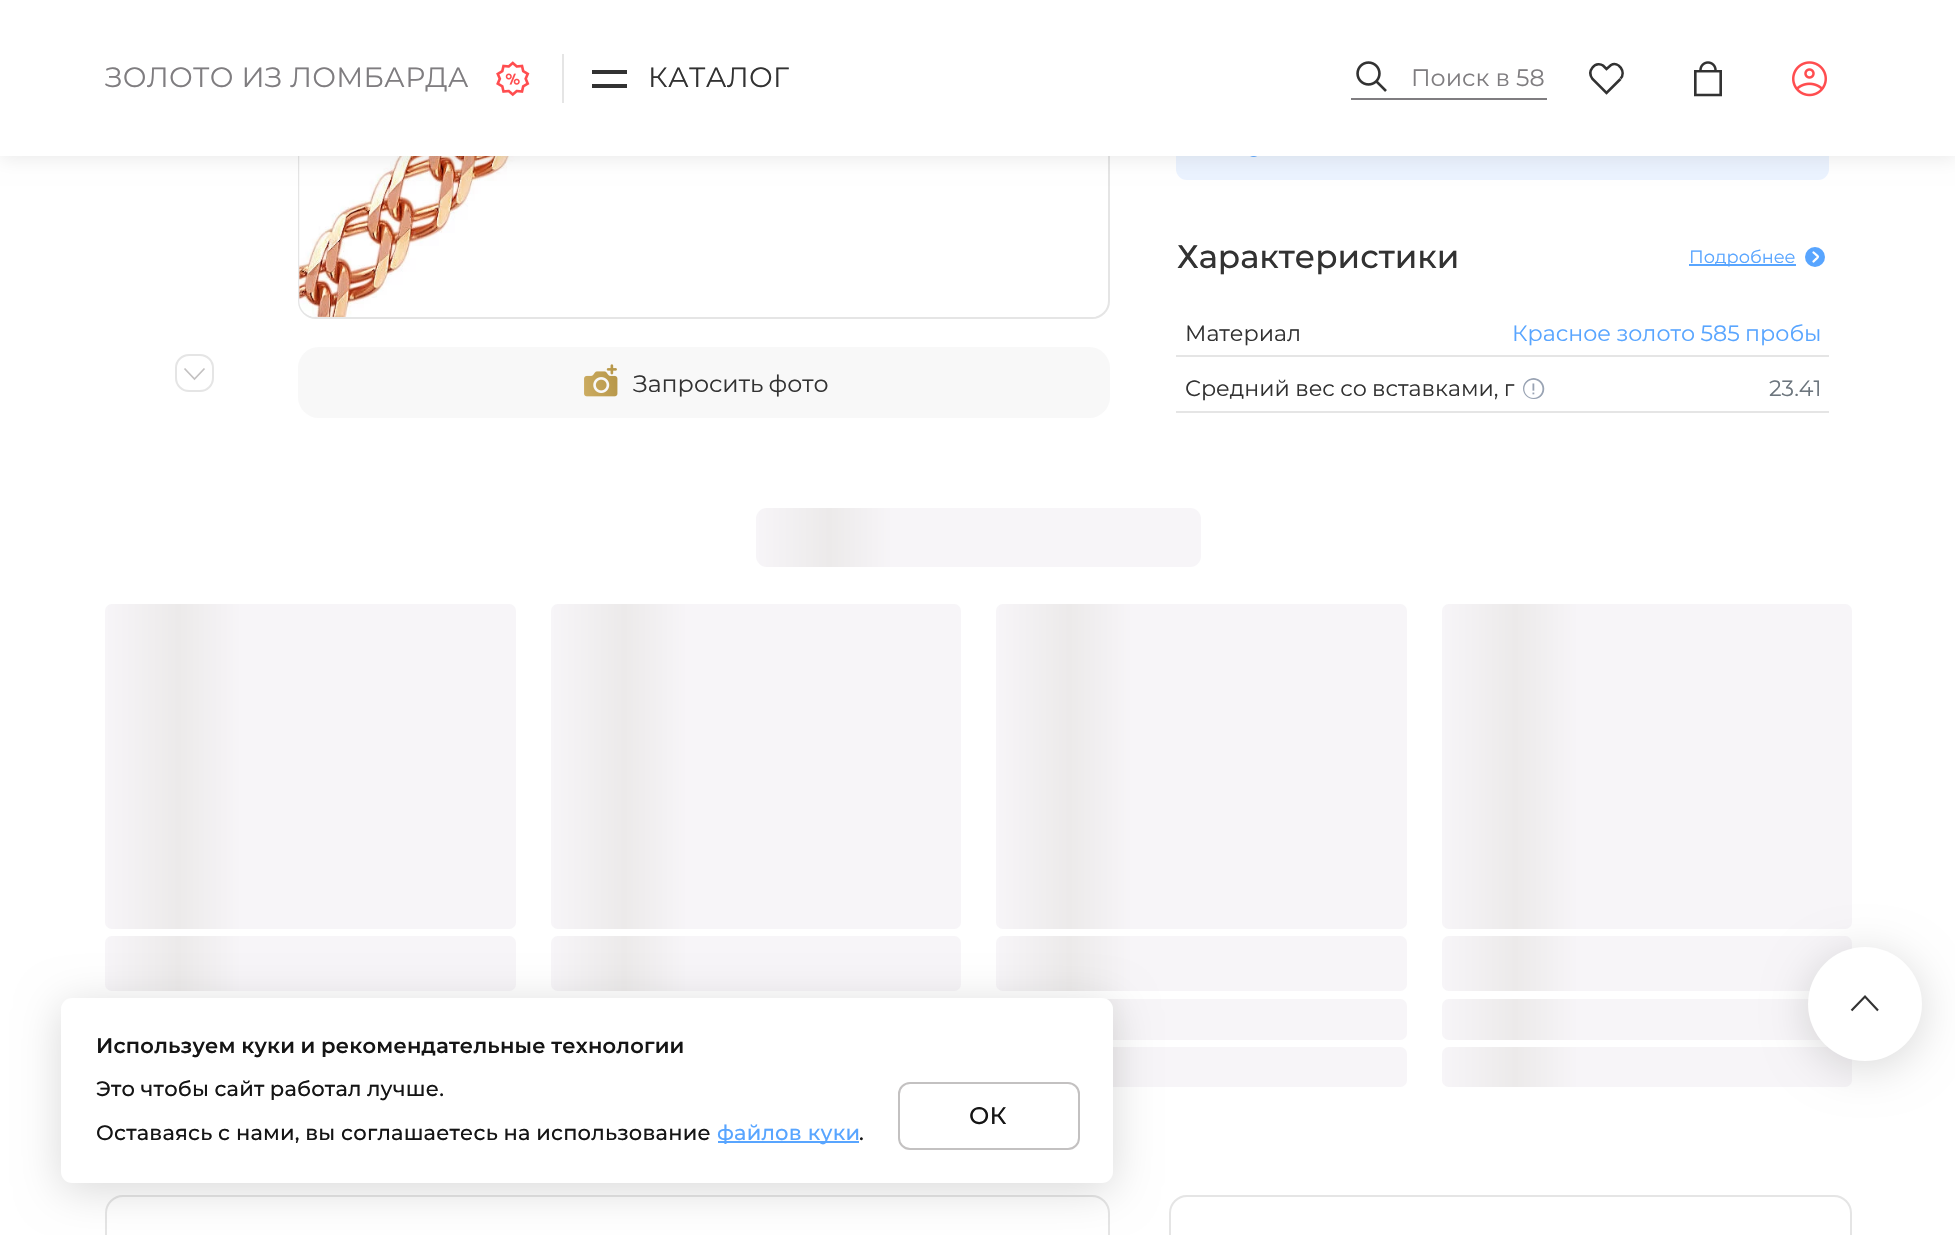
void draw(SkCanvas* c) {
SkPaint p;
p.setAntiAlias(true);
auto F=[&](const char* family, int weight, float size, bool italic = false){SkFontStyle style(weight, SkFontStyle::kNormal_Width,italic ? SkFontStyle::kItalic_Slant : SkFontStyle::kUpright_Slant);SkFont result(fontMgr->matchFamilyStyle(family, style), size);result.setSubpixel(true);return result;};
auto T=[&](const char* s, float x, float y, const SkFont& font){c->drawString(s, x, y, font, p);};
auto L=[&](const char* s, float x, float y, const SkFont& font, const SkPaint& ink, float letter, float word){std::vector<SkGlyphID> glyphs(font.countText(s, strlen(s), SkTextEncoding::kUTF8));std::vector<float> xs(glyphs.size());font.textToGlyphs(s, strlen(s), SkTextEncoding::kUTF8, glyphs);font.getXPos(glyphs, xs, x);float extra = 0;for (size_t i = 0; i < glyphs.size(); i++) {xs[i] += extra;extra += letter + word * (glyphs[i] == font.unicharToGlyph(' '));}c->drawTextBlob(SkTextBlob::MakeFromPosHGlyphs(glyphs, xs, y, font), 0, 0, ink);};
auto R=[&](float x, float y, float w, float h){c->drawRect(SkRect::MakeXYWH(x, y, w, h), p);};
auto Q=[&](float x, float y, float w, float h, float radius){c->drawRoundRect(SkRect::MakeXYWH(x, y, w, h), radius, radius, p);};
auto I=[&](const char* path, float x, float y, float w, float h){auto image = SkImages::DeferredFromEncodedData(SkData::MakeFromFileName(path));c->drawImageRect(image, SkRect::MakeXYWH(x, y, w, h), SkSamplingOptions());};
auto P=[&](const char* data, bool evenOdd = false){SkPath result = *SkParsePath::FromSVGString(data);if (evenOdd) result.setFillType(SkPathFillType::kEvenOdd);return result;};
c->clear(0xffffffff);
p.setStroke(true);
p.setStrokeWidth(2);
p.setColor(0xffe5e5e5);
c->drawRoundRect(SkRect::MakeXYWH(299,-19,810,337),17,17,p);
I("5.png",299,156,797,161);
p.setStroke(false);
p.setColor(0xffebf3ff);
Q(1176,82,653,98,11);
I("7.png",1250,156,7,1);
p.setColor(0x14000000);
p.setMaskFilter(SkMaskFilter::MakeBlur(kNormal_SkBlurStyle, 9));
c->drawRect(SkRect::MakeXYWH(0,2,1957,157),p);
p.setMaskFilter(nullptr);
p.setColor(0xffffffff);
R(0,0,1955,156);
auto f1 = F("Montserrat",400,28);
p.setColor(0xff7f7d80);
L("ЗОЛОТО ИЗ ЛОМБАРДА",105,87,f1,p,.25,0);
I("1.png",496,61,34,36);
p.setColor(0xffe5e5e5);
R(562,54,2,49);
p.setColor(0xff323232);
R(592,70,35,4);
R(592,84,35,4);
L("КАТАЛОГ",648,87,f1,p,.25,0);
p.setColor(0xff7f7d80);
R(1351,98,196,2);
I("2.png",1356,61,31,31);
auto f2 = F("Montserrat",400,23.75);
T("Поиск в 58",1411,86,f2);
p.setStroke(true);
p.setStrokeWidth(2.6);
p.setColor(0xff323232);
c->drawPath(P("M1620.5 79l-14 14l-14-14c-1.5-2-4-6.5 0-11.5c3.5-4.5 8.5-3.5 10.5-2l3.5 3.5l4.5-4c7.5-4.5 15.5 7.5 9.5 13.5"),p);
I("3.png",1694,61,28,36);
I("4.png",1792,61,35,36);
p.setStrokeWidth(2);
p.setColor(0xffe5e5e5);
c->drawRoundRect(SkRect::MakeXYWH(176,355,37,36),13,13,p);
p.setStrokeWidth(1.7);
p.setColor(0xffc3c1c1);
c->drawPath(P("M184.5 368.5l10 10.5l10-10.5"),p);
p.setStroke(false);
p.setColor(0xfff8f8f8);
Q(298,347,812,71,21);
I("6.png",584,364,34,33);
p.setColor(0xff323232);
L("Запросить фото",633,392,f2,p,0,-1);
auto f3 = F("Montserrat",500,32.5);
T("Характеристики",1177,268,f3);
p.setColor(0xff58a5ff);
R(1689,264,107,2);
auto f4 = F("Montserrat",400,17.75);
T("Подробнее",1689,263,f4);
c->drawCircle(1815,257,10,p);
p.setStroke(true);
p.setStrokeWidth(2.3);
p.setStrokeCap(SkPaint::kRound_Cap);
p.setColor(0xffffffff);
c->drawPath(P("M1813.5 252.5c6 5.5 6 3 0 9"),p);
p.setStroke(false);
p.setColor(0xffe5e5e5);
R(1176,355,653,2);
auto f5 = F("Montserrat",400,22.2);
p.setColor(0xff323232);
T("Материал",1185,341,f5);
p.setColor(0xff58a5ff);
L("Красное золото 585 пробы",1512,341,f5,p,0,-.5);
p.setColor(0xffe5e5e5);
R(1176,411,653,2);
p.setColor(0xff323232);
L("Средний вес со вставками, г",1185,396,f5,p,0,-.5);
I("8.png",1523,378,22,21);
p.setColor(0xff6c757d);
T("23.41",1769,396,f5);
{
const SkColor colors[] = {0xfff7f5f8,0xffeceaea,0xfff7f5f8};
const float stops[] = {0,.07,.13};
const SkPoint ends[] = {{756,537}, {1806,537}};
p.setShader(SkGradientShader::MakeLinear(ends, colors, stops, 3, SkTileMode::kClamp));
p.setAlpha(255);
}
Q(756,508,445,59,11);
{
const SkColor colors[] = {0xfff7f5f8,0xffeceaea,0xfff7f5f8};
const float stops[] = {0,.07,.13};
const SkPoint ends[] = {{105,767}, {1155,767}};
p.setShader(SkGradientShader::MakeLinear(ends, colors, stops, 3, SkTileMode::kClamp));
p.setAlpha(255);
}
Q(105,604,411,325,7);
{
const SkColor colors[] = {0xfff7f5f8,0xffeceaea,0xfff7f5f8};
const float stops[] = {0,.07,.13};
const SkPoint ends[] = {{105,963}, {1155,963}};
p.setShader(SkGradientShader::MakeLinear(ends, colors, stops, 3, SkTileMode::kClamp));
p.setAlpha(255);
}
Q(105,936,411,55,7);
{
const SkColor colors[] = {0xfff7f5f8,0xffeceaea,0xfff7f5f8};
const float stops[] = {0,.07,.13};
const SkPoint ends[] = {{551,767}, {1601,767}};
p.setShader(SkGradientShader::MakeLinear(ends, colors, stops, 3, SkTileMode::kClamp));
p.setAlpha(255);
}
Q(551,604,410,325,7);
{
const SkColor colors[] = {0xfff7f5f8,0xffeceaea,0xfff7f5f8};
const float stops[] = {0,.07,.13};
const SkPoint ends[] = {{551,963}, {1601,963}};
p.setShader(SkGradientShader::MakeLinear(ends, colors, stops, 3, SkTileMode::kClamp));
p.setAlpha(255);
}
Q(551,936,410,55,7);
{
const SkColor colors[] = {0xfff7f5f8,0xffeceaea,0xfff7f5f8};
const float stops[] = {0,.07,.13};
const SkPoint ends[] = {{996,767}, {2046,767}};
p.setShader(SkGradientShader::MakeLinear(ends, colors, stops, 3, SkTileMode::kClamp));
p.setAlpha(255);
}
Q(996,604,411,325,7);
{
const SkColor colors[] = {0xfff7f5f8,0xffeceaea,0xfff7f5f8};
const float stops[] = {0,.07,.13};
const SkPoint ends[] = {{996,963}, {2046,963}};
p.setShader(SkGradientShader::MakeLinear(ends, colors, stops, 3, SkTileMode::kClamp));
p.setAlpha(255);
}
Q(996,936,411,55,7);
{
const SkColor colors[] = {0xfff7f5f8,0xffeceaea,0xfff7f5f8};
const float stops[] = {0,.07,.13};
const SkPoint ends[] = {{996,1019}, {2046,1019}};
p.setShader(SkGradientShader::MakeLinear(ends, colors, stops, 3, SkTileMode::kClamp));
p.setAlpha(255);
}
Q(996,999,411,41,7);
{
const SkColor colors[] = {0xfff7f5f8,0xffeceaea,0xfff7f5f8};
const float stops[] = {0,.07,.13};
const SkPoint ends[] = {{996,1067}, {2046,1067}};
p.setShader(SkGradientShader::MakeLinear(ends, colors, stops, 3, SkTileMode::kClamp));
p.setAlpha(255);
}
Q(996,1047,411,40,7);
{
const SkColor colors[] = {0xfff7f5f8,0xffeceaea,0xfff7f5f8};
const float stops[] = {0,.07,.13};
const SkPoint ends[] = {{1442,767}, {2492,767}};
p.setShader(SkGradientShader::MakeLinear(ends, colors, stops, 3, SkTileMode::kClamp));
p.setAlpha(255);
}
Q(1442,604,410,325,7);
{
const SkColor colors[] = {0xfff7f5f8,0xffeceaea,0xfff7f5f8};
const float stops[] = {0,.07,.13};
const SkPoint ends[] = {{1442,963}, {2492,963}};
p.setShader(SkGradientShader::MakeLinear(ends, colors, stops, 3, SkTileMode::kClamp));
p.setAlpha(255);
}
Q(1442,936,410,55,7);
{
const SkColor colors[] = {0xfff7f5f8,0xffeceaea,0xfff7f5f8};
const float stops[] = {0,.07,.13};
const SkPoint ends[] = {{1442,1019}, {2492,1019}};
p.setShader(SkGradientShader::MakeLinear(ends, colors, stops, 3, SkTileMode::kClamp));
p.setAlpha(255);
}
Q(1442,999,410,41,7);
{
const SkColor colors[] = {0xfff7f5f8,0xffeceaea,0xfff7f5f8};
const float stops[] = {0,.07,.13};
const SkPoint ends[] = {{1442,1067}, {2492,1067}};
p.setShader(SkGradientShader::MakeLinear(ends, colors, stops, 3, SkTileMode::kClamp));
p.setAlpha(255);
}
Q(1442,1047,410,40,7);
p.setStroke(true);
p.setStrokeWidth(2);
p.setStrokeCap(SkPaint::kButt_Cap);
p.setShader(nullptr);
p.setColor(0xffe5e5e5);
c->drawRoundRect(SkRect::MakeXYWH(106,1196,1003,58),17,17,p);
c->drawRoundRect(SkRect::MakeXYWH(1170,1196,681,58),17,17,p);
p.setStroke(false);
p.setColor(0x26000000);
p.setMaskFilter(SkMaskFilter::MakeBlur(kNormal_SkBlurStyle, 22));
c->drawRoundRect(SkRect::MakeXYWH(1808,954,114,114),57,57,p);
p.setMaskFilter(nullptr);
p.setColor(0xffffffff);
c->drawCircle(1865,1004,57,p);
p.setStroke(true);
p.setStrokeWidth(2.2);
p.setColor(0xff333333);
c->drawPath(P("M1851.5 1010.5l13.5-14l13 14"),p);
p.setStroke(false);
p.setColor(0x26000000);
p.setMaskFilter(SkMaskFilter::MakeBlur(kNormal_SkBlurStyle, 22));
c->drawRoundRect(SkRect::MakeXYWH(61,1005,1052,185),11,11,p);
p.setMaskFilter(nullptr);
p.setColor(0xffffffff);
Q(61,998,1052,185,11);
auto f6 = F("Montserrat",600,21);
p.setColor(0xff151515);
L("Используем куки и рекомендательные технологии",96,1053,f6,p,.2,-.5);
auto f7 = F("Montserrat",500,21);
L("Это чтобы сайт работал лучше.",96,1096,f7,p,.2,-.5);
L("Оставаясь с нами, вы соглашаетесь на использование",96,1140,f7,p,.2,-.25);
p.setColor(0xff58a5ff);
R(718,1141,141,2);
L("файлов куки",717,1140,f7,p,.2,0);
p.setColor(0xff151515);
L(".",859,1140,f7,p,.2,0);
p.setStroke(true);
p.setStrokeWidth(2);
p.setColor(0xffc3c1c1);
c->drawRoundRect(SkRect::MakeXYWH(899,1083,180,66),11,11,p);
auto f8 = F("Montserrat",500,24);
p.setStroke(false);
p.setColor(0xff151515);
L("ОК",969,1124,f8,p,.25,0);
}
